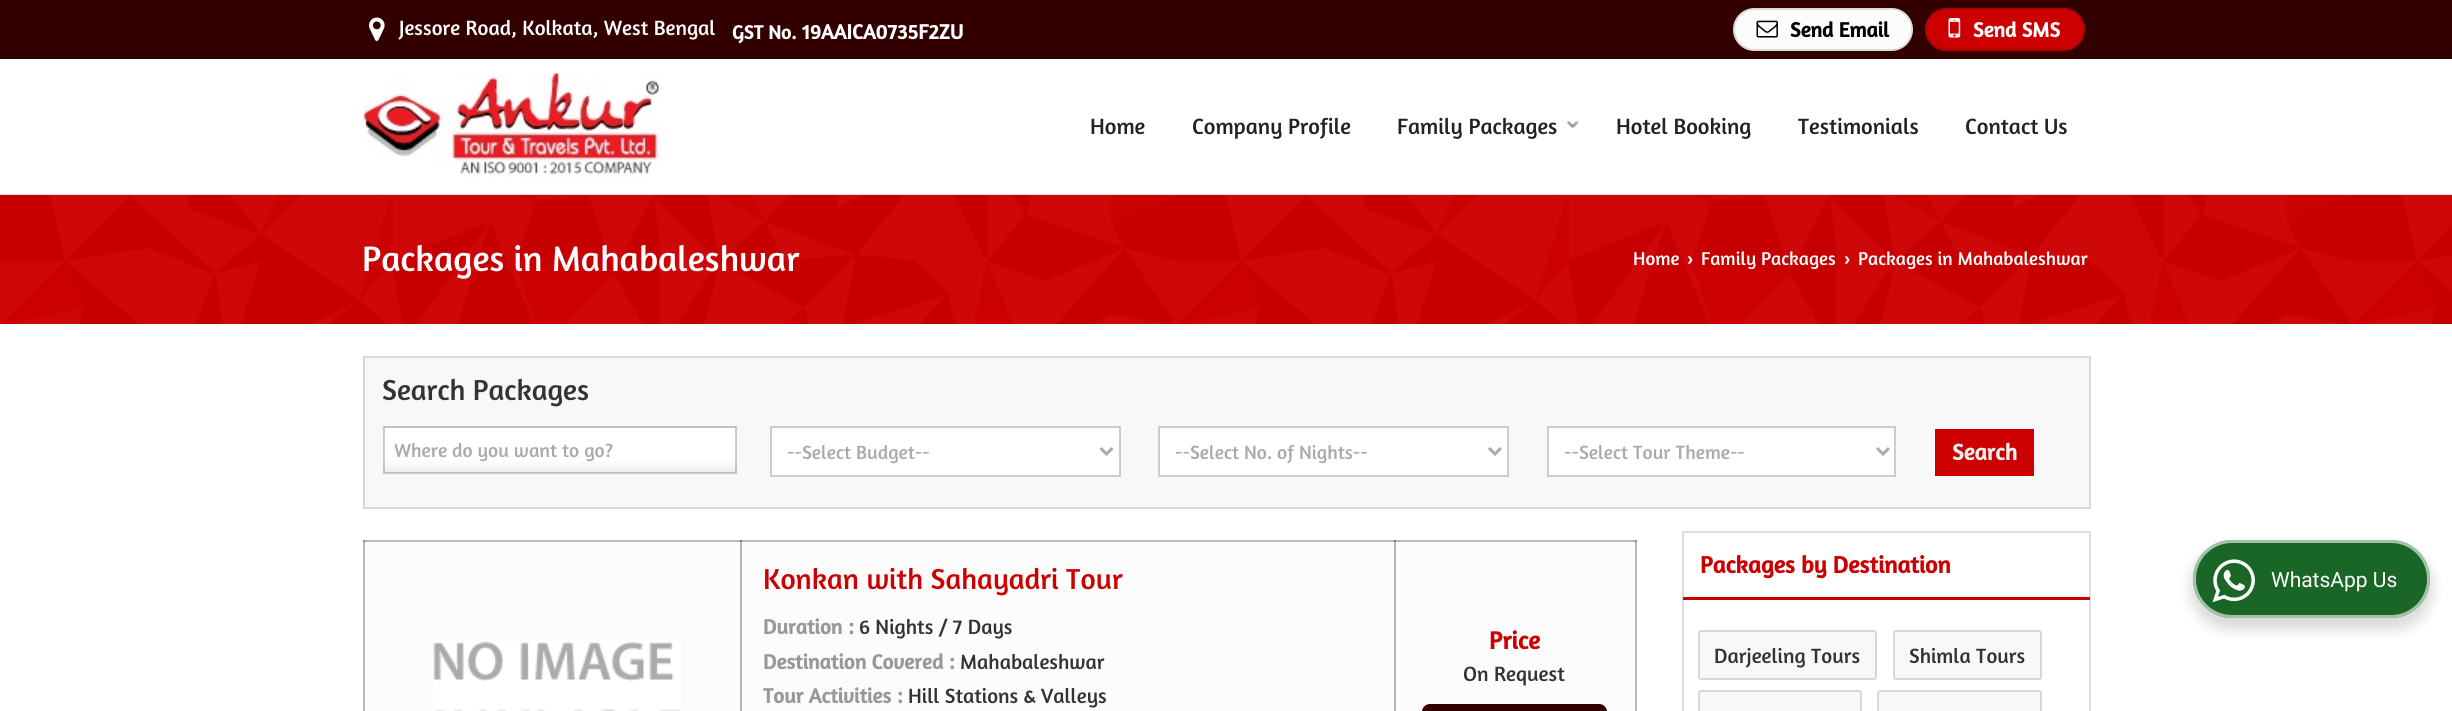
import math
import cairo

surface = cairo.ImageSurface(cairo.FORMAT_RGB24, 2452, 711)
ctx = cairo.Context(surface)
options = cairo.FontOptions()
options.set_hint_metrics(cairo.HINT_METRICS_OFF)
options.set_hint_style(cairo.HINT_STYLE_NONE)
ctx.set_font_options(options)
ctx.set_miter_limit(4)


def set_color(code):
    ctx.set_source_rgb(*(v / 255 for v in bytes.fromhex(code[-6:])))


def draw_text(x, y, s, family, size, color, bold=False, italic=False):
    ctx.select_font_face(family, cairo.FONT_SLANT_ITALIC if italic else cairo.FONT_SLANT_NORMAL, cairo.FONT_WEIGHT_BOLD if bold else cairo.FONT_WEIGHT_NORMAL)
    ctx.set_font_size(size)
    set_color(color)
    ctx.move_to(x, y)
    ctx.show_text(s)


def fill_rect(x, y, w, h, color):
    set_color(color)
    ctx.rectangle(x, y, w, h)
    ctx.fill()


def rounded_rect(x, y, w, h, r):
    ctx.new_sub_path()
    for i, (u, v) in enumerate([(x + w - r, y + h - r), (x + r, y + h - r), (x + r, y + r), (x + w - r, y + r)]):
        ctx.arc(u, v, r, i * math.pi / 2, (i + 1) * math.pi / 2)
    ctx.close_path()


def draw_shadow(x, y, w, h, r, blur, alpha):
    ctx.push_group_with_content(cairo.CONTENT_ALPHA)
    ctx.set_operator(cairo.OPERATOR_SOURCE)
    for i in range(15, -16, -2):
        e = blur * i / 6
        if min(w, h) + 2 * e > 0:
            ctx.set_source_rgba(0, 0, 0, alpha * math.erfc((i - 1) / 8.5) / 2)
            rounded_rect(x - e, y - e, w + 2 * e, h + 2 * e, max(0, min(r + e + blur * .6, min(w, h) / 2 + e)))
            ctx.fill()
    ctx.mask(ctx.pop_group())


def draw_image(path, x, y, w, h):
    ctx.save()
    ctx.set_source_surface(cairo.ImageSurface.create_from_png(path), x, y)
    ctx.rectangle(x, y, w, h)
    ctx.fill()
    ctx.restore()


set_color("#ffffff")
ctx.paint()
fill_rect(0, 0, 2452, 59, "#330000")
draw_image("assets/img1.png", 369, 17, 16, 24)
draw_text(399, 35, "Jessore Road, Kolkata, West Bengal", "Amaranth", 21, "#ffffff")
draw_text(732, 39, "GST No.", "Amaranth", 19.5, "#ffffff", bold=True)
draw_text(802, 39, "19AAICA0735F2ZU", "Amaranth", 21, "#ffffff", bold=True)
set_color("#fcfcfc")
rounded_rect(1733, 8, 180, 43, 21.5)
ctx.fill()
rounded_rect(1734, 9, 178, 41, 20.5)
ctx.set_source_rgba(0, 0, 0, 0.13)
ctx.stroke()
draw_image("assets/img2.png", 1756, 20, 22, 18)
draw_text(1790, 37, "Send Email", "Amaranth", 21, "#000000", bold=True)
set_color("#cc0000")
rounded_rect(1925, 8, 160, 43, 21.5)
ctx.fill()
rounded_rect(1926, 9, 158, 41, 20.5)
ctx.set_source_rgba(0, 0, 0, 0.13)
ctx.stroke()
draw_image("assets/img3.png", 1948, 18, 13, 20)
draw_text(1973, 37, "Send SMS", "Amaranth", 21, "#ffffff", bold=True)
fill_rect(0, 194, 2452, 1, "#dedede")
draw_image("assets/img4.png", 363, 73, 300, 105)
draw_text(1090, 134, "Home", "Amaranth", 22.5, "#222222")
draw_text(1192, 134, "Company Profile", "Amaranth", 22.5, "#222222")
draw_text(1397, 134, "Family Packages", "Amaranth", 22.5, "#222222")
draw_image("assets/img5.png", 1567, 121, 12, 8)
draw_text(1616, 134, "Hotel Booking", "Amaranth", 22.5, "#222222")
draw_text(1798, 134, "Testimonials", "Amaranth", 22.5, "#222222")
draw_text(1965, 134, "Contact Us", "Amaranth", 22.5, "#222222")
fill_rect(0, 195, 2452, 129, "#cc0000")
draw_image("assets/img6.png", 0, 195, 2452, 129)
draw_text(362, 271, "Packages in Mahabaleshwar", "Amaranth", 36, "#ffffff")
draw_text(1633, 265, "Home", "Amaranth", 18.9, "#ffffff")
draw_text(1687, 265, "›", "Liberation Sans", 18.9, "#ffffff", bold=True)
draw_text(1701, 265, "Family Packages", "Amaranth", 18.9, "#ffffff")
draw_text(1844, 265, "›", "Liberation Sans", 18.9, "#ffffff", bold=True)
draw_text(1858, 265, "Packages in Mahabaleshwar", "Amaranth", 18.9, "#ffffff")
set_color("#f8f8f8")
ctx.rectangle(364, 357, 1726, 151)
ctx.fill_preserve()
set_color("#d8d8d8")
ctx.stroke()
draw_text(382, 400, "Search Packages", "Amaranth", 29.4, "#333333")
gradient = cairo.LinearGradient(560, 383, 560, 428)
gradient.add_color_stop_rgba(0.7, 1, 1, 1, 1)
gradient.add_color_stop_rgba(1, 0.933, 0.933, 0.933, 1)
ctx.set_source(gradient)
ctx.rectangle(383, 426, 354, 2)
ctx.fill()
gradient = cairo.LinearGradient(560, 428, 560, 473)
gradient.add_color_stop_rgba(0.7, 1, 1, 1, 1)
gradient.add_color_stop_rgba(1, 0.933, 0.933, 0.933, 1)
ctx.set_source(gradient)
ctx.rectangle(383, 428, 354, 45)
ctx.fill()
gradient = cairo.LinearGradient(560, 473, 560, 518)
gradient.add_color_stop_rgba(0.7, 1, 1, 1, 1)
gradient.add_color_stop_rgba(1, 0.933, 0.933, 0.933, 1)
ctx.set_source(gradient)
ctx.rectangle(383, 473, 354, 1)
ctx.fill()
ctx.rectangle(384, 427, 352, 46)
ctx.set_source_rgba(0, 0, 0, 0.2)
ctx.stroke()
ctx.save()
ctx.rectangle(395, 438, 330, 24)
ctx.clip()
draw_text(394, 457, "Where do you want to go?", "Amaranth", 19.5, "#aaaaaa")
ctx.restore()
set_color("#ffffff")
ctx.rectangle(771, 427, 349, 49)
ctx.fill_preserve()
set_color("#cccccc")
ctx.stroke()
ctx.new_path()
ctx.move_to(1100.5, 448)
ctx.line_to(1106.5, 454)
ctx.line_to(1112.5, 448)
set_color("#aaaaaa")
ctx.set_line_width(3)
ctx.stroke()
draw_text(787, 459, "--Select Budget--", "Amaranth", 19.5, "#aaaaaa")
set_color("#ffffff")
ctx.rectangle(1159, 427, 349, 49)
ctx.fill_preserve()
set_color("#cccccc")
ctx.set_line_width(2)
ctx.stroke()
ctx.new_path()
ctx.move_to(1489, 448)
ctx.line_to(1495, 454)
ctx.line_to(1501, 448)
set_color("#aaaaaa")
ctx.set_line_width(3)
ctx.stroke()
draw_text(1175, 459, "--Select No. of Nights--", "Amaranth", 19.5, "#aaaaaa")
set_color("#ffffff")
ctx.rectangle(1548, 427, 347, 49)
ctx.fill_preserve()
set_color("#cccccc")
ctx.set_line_width(2)
ctx.stroke()
ctx.new_path()
ctx.move_to(1877, 448)
ctx.line_to(1883, 454)
ctx.line_to(1889, 448)
set_color("#aaaaaa")
ctx.set_line_width(3)
ctx.stroke()
draw_text(1564, 459, "--Select Tour Theme--", "Amaranth", 19.5, "#aaaaaa")
fill_rect(1935, 429, 99, 47, "#cc0000")
draw_text(1952, 460, "Search", "Amaranth", 23, "#eeeeee", bold=True)
fill_rect(365, 542, 1270, 169, "#fcfcfc")
fill_rect(740, 540, 2, 171, "#b6b6b6")
fill_rect(1394, 540, 2, 171, "#b6b6b6")
fill_rect(363, 540, 2, 171, "#bababa")
fill_rect(1635, 540, 2, 171, "#bababa")
fill_rect(363, 540, 1274, 2, "#bababa")
fill_rect(740, 540, 2, 2, "#868686")
fill_rect(740, 540, 1, 2, "#727272")
fill_rect(1394, 540, 2, 2, "#868686")
fill_rect(1394, 540, 1, 2, "#727272")
fill_rect(363, 540, 2, 2, "#8a8a8a")
fill_rect(1635, 540, 2, 2, "#8a8a8a")
draw_image("assets/img7.png", 433, 641, 248, 70)
draw_text(763, 589, "Konkan with Sahayadri Tour", "Amaranth", 29.4, "#cc0000")
draw_text(763, 634, "Duration :", "Amaranth", 21, "#989898", bold=True)
draw_text(859, 634, "6 Nights / 7 Days", "Amaranth", 21, "#333333")
draw_text(763, 669, "Destination Covered :", "Amaranth", 21, "#989898", bold=True)
draw_text(960, 669, "Mahabaleshwar", "Amaranth", 21, "#333333")
draw_text(763, 703, "Tour Activities :", "Amaranth", 21, "#989898", bold=True)
draw_text(908, 703, "Hill Stations & Valleys", "Amaranth", 21, "#333333")
draw_text(1489, 649, "Price", "Amaranth", 25, "#cc0000", bold=True)
draw_text(1463, 681, "On Request", "Amaranth", 21, "#333333")
set_color("#330000")
rounded_rect(1422, 704, 185, 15, 8)
ctx.fill()
rounded_rect(1423, 705, 183, 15, 7)
ctx.set_source_rgba(0, 0, 0, 0.13)
ctx.set_line_width(2)
ctx.stroke()
ctx.rectangle(1683, 532, 407, 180)
set_color("#dedede")
ctx.stroke()
fill_rect(1683, 597, 407, 3, "#cc0000")
draw_text(1700, 573, "Packages by Destination", "Amaranth", 24, "#cc0000", bold=True)
set_color("#f8f8f8")
rounded_rect(1698, 630, 179, 50, 3)
ctx.fill()
rounded_rect(1699, 631, 177, 48, 2)
ctx.set_source_rgba(0, 0, 0, 0.13)
ctx.stroke()
draw_text(1714, 663, "Darjeeling Tours", "Amaranth", 21, "#333333")
set_color("#f8f8f8")
rounded_rect(1893, 630, 149, 50, 3)
ctx.fill()
rounded_rect(1894, 631, 147, 48, 2)
ctx.set_source_rgba(0, 0, 0, 0.13)
ctx.stroke()
draw_text(1909, 663, "Shimla Tours", "Amaranth", 21, "#333333")
set_color("#f8f8f8")
rounded_rect(1698, 690, 164, 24, 3)
ctx.fill()
rounded_rect(1699, 691, 162, 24, 2)
ctx.set_source_rgba(0, 0, 0, 0.13)
ctx.stroke()
set_color("#f8f8f8")
rounded_rect(1877, 690, 165, 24, 3)
ctx.fill()
rounded_rect(1878, 691, 163, 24, 2)
ctx.set_source_rgba(0, 0, 0, 0.13)
ctx.stroke()
set_color("#000000")
draw_shadow(2190, 546, 243, 84, 42, 6, 0.14)
set_color("#196626")
rounded_rect(2193, 540, 237, 78, 39)
ctx.fill()
rounded_rect(2194.5, 541.5, 234, 75, 37.5)
ctx.set_source_rgba(1, 1, 1, 0.6)
ctx.set_line_width(3)
ctx.stroke()
draw_image("assets/img8.png", 2212, 559, 43, 44)
draw_text(2271, 587, "WhatsApp Us", "Roboto", 21, "#ffffff")
surface.write_to_png("output.png")
